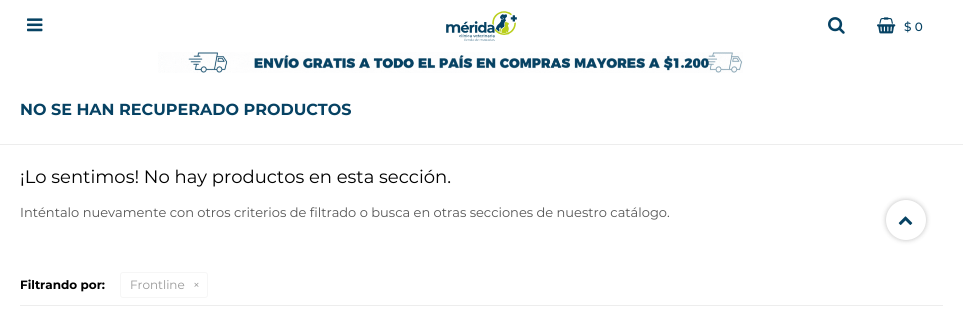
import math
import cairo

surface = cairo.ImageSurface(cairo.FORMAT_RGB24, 963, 330)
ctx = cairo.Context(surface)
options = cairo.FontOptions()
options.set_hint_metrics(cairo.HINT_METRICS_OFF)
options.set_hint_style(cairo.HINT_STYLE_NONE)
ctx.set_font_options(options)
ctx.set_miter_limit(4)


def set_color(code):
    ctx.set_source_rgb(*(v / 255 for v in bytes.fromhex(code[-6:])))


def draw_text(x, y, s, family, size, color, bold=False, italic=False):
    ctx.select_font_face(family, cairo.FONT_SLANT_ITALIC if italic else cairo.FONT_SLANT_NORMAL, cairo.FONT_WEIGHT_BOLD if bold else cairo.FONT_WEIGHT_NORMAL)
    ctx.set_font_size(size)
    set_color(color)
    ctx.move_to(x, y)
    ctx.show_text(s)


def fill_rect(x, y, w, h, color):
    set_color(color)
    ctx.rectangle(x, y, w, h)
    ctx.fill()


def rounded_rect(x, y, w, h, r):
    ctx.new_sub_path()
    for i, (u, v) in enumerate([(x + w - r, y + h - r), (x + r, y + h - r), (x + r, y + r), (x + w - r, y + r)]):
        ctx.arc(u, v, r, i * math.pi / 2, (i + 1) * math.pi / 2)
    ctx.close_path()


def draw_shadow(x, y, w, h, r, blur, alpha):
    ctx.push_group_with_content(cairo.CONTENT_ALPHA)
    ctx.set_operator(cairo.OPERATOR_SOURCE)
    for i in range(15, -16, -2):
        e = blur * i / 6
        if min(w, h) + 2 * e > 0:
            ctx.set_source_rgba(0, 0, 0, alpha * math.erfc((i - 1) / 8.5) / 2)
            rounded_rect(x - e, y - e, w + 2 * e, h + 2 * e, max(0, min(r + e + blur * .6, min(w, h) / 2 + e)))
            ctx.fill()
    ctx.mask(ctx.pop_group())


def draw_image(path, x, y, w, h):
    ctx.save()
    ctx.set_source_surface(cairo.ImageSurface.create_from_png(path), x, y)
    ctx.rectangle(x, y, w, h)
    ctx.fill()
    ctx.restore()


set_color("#ffffff")
ctx.paint()
draw_image("assets/img1.png", 27, 18, 16, 14)
draw_image("assets/img2.png", 446, 11, 71, 30)
draw_image("assets/img3.png", 828, 17, 17, 17)
draw_image("assets/img4.png", 877, 17, 19, 17)
draw_text(904, 31, "$ 0", "Montserrat Medium", 12, "#064263")
draw_image("assets/img5.png", 158, 52, 585, 21)
draw_text(20, 115, "NO SE HAN RECUPERADO PRODUCTOS", "Montserrat", 16, "#064263", bold=True)
fill_rect(0, 144, 963, 1, "#ededed")
draw_text(20, 183, "¡Lo sentimos! No hay productos en esta sección.", "Montserrat", 18, "#000000")
draw_text(20, 217, "Inténtalo nuevamente con otros criterios de filtrado o busca en otras secciones de nuestro catálogo.", "Montserrat", 13, "#555555")
fill_rect(20, 305, 923, 1, "#ededed")
draw_text(20, 289, "Filtrando por:", "Montserrat", 12, "#000000", bold=True)
rounded_rect(120.5, 272.5, 87, 25, 2.5)
set_color("#f6f6f6")
ctx.set_line_width(1)
ctx.stroke()
draw_text(130, 289, "Frontline", "Montserrat", 12, "#999999")
draw_text(193, 289, "×", "Montserrat", 12, "#999999")
set_color("#000000")
draw_shadow(886, 200, 40, 40, 20, 2.5, 0.25)
set_color("#ffffff")
ctx.arc(906, 220, 20, 0, 2 * math.pi)
ctx.fill()
draw_image("assets/img6.png", 898, 216, 15, 9)
surface.write_to_png("output.png")
